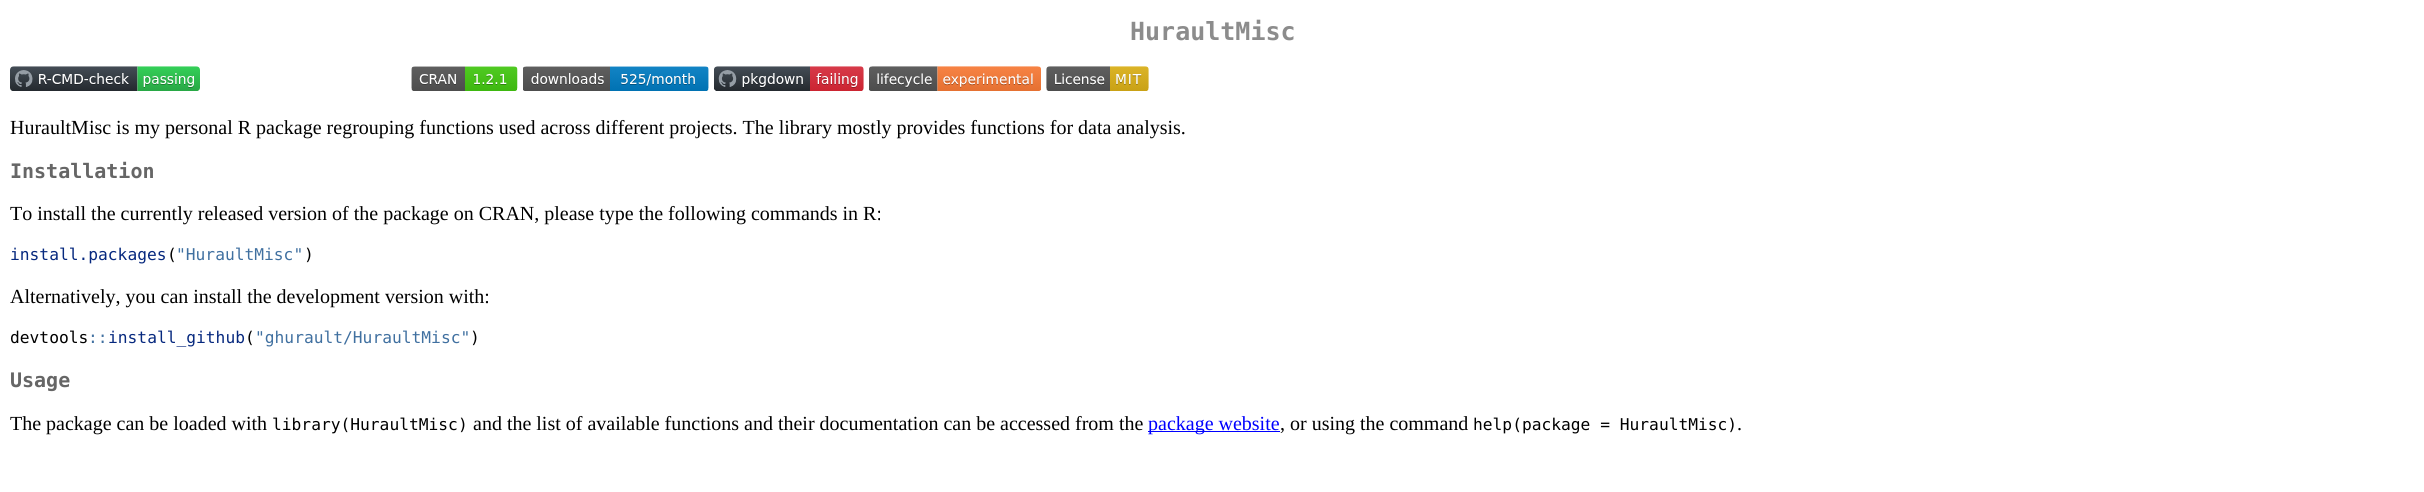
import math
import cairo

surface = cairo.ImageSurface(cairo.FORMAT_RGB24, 2424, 492)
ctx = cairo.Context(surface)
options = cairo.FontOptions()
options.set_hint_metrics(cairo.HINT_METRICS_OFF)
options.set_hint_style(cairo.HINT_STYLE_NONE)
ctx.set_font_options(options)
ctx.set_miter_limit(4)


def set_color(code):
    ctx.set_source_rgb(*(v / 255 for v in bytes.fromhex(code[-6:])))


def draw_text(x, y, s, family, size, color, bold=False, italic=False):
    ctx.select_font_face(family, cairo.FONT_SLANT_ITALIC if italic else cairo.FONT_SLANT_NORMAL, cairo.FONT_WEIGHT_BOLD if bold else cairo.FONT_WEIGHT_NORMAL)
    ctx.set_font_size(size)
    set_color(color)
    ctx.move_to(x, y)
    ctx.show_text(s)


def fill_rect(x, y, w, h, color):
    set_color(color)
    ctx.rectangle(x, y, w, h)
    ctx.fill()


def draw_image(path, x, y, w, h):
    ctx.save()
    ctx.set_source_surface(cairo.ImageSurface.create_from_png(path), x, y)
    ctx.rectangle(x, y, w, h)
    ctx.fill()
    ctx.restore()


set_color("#ffffff")
ctx.paint()
draw_text(1130, 40, "HuraultMisc", "DejaVu Sans Mono", 25, "#8c8c8c", bold=True)
draw_image("assets/img1.png", 10, 66, 190, 25)
draw_image("assets/img2.png", 411, 66, 107, 25)
draw_image("assets/img3.png", 523, 66, 186, 25)
draw_image("assets/img4.png", 714, 66, 150, 25)
draw_image("assets/img5.png", 869, 66, 172, 25)
draw_image("assets/img6.png", 1046, 66, 103, 25)
draw_text(10, 134, "HuraultMisc is my personal R package regrouping functions used across different projects. The library mostly provides functions for data analysis.", "Liberation Serif", 20, "#000000")
draw_text(10, 178, "Installation", "DejaVu Sans Mono", 20, "#666666", bold=True)
draw_text(10, 220, "To install the currently released version of the package on CRAN, please type the following commands in R:", "Liberation Serif", 20, "#000000")
draw_text(10, 260, "install.packages", "DejaVu Sans Mono", 16.25, "#06287e")
draw_text(167, 260, "(", "DejaVu Sans Mono", 16.25, "#000000")
draw_text(176, 260, "\"HuraultMisc\"", "DejaVu Sans Mono", 16.25, "#4070a0")
draw_text(304, 260, ")", "DejaVu Sans Mono", 16.25, "#000000")
draw_text(10, 303, "Alternatively, you can install the development version with:", "Liberation Serif", 20, "#000000")
draw_text(10, 343, "devtools", "DejaVu Sans Mono", 16.25, "#000000")
draw_text(88, 343, "::", "DejaVu Sans Mono", 16.25, "#4070a0")
draw_text(108, 343, "install_github", "DejaVu Sans Mono", 16.25, "#06287e")
draw_text(245, 343, "(", "DejaVu Sans Mono", 16.25, "#000000")
draw_text(255, 343, "\"ghurault/HuraultMisc\"", "DejaVu Sans Mono", 16.25, "#4070a0")
draw_text(470, 343, ")", "DejaVu Sans Mono", 16.25, "#000000")
draw_text(10, 387, "Usage", "DejaVu Sans Mono", 20, "#666666", bold=True)
draw_text(10, 430, "The package can be loaded with", "Liberation Serif", 20, "#000000")
draw_text(272, 430, "library(HuraultMisc)", "DejaVu Sans Mono", 16.25, "#000000")
draw_text(473, 430, "and the list of available functions and their documentation can be accessed from the", "Liberation Serif", 20, "#000000")
fill_rect(1148, 431, 132, 1, "#0000ff")
draw_text(1148, 430, "package website", "Liberation Serif", 20, "#0000ff")
draw_text(1280, 430, ", or using the command", "Liberation Serif", 20, "#000000")
draw_text(1473, 430, "help(package = HuraultMisc)", "DejaVu Sans Mono", 16.25, "#000000")
draw_text(1737, 430, ".", "Liberation Serif", 20, "#000000")
surface.write_to_png("output.png")
